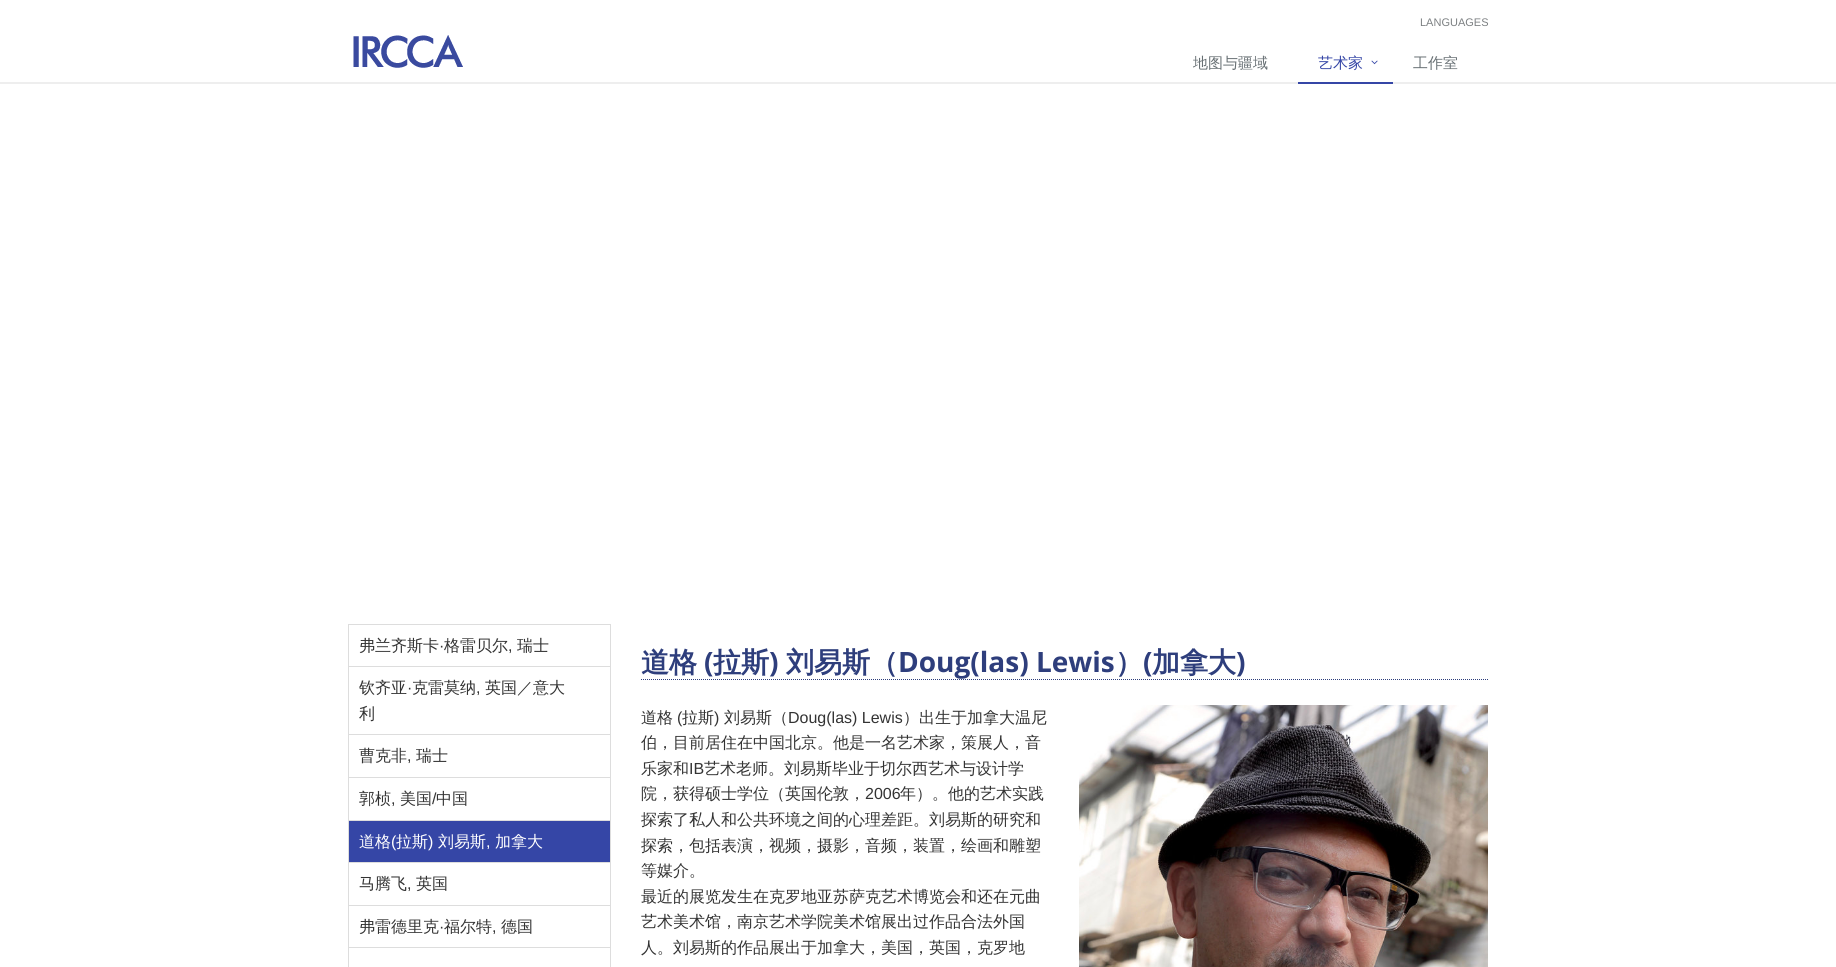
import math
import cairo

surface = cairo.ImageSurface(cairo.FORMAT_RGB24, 1836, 967)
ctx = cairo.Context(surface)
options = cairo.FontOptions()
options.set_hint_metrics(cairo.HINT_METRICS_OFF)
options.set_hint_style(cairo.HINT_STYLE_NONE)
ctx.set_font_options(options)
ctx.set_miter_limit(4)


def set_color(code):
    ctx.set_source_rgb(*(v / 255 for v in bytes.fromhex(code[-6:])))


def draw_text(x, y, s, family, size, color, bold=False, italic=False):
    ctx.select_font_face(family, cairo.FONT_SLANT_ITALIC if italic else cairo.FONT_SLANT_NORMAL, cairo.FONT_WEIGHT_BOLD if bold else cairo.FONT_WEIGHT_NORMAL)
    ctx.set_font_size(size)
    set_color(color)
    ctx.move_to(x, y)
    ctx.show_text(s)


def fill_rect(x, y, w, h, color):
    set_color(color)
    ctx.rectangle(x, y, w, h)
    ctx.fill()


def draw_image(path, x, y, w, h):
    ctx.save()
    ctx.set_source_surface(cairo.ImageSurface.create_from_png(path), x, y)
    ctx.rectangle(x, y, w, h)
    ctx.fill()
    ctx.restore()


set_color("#ffffff")
ctx.paint()
fill_rect(0, 82, 1836, 2, "#eeeeee")
draw_text(1420, 26, "LANGUAGES", "Liberation Sans", 11, "#7c8082")
draw_image("assets/img1.png", 353, 35, 110, 33)
draw_text(1193, 68, "地图与疆域", "WenQuanYi Zen Hei Medium", 15, "#687074")
fill_rect(1298, 82, 95, 2, "#3546a6")
draw_text(1318, 68, "艺术家", "WenQuanYi Zen Hei Medium", 15, "#3546a6")
draw_image("assets/img2.png", 1371, 60, 7, 5)
draw_text(1413, 68, "工作室", "WenQuanYi Zen Hei Medium", 15, "#687074")
ctx.rectangle(348.5, 624.5, 262, 42)
set_color("#dddddd")
ctx.set_line_width(1)
ctx.stroke()
draw_text(359, 651, "弗兰齐斯卡", "WenQuanYi Zen Hei Medium", 16, "#333333")
draw_text(439, 651, "·", "Liberation Sans", 16, "#333333")
draw_text(444, 651, "格雷贝尔", "WenQuanYi Zen Hei Medium", 16, "#333333")
draw_text(517, 651, "瑞士", "WenQuanYi Zen Hei Medium", 16, "#333333")
draw_text(508, 651, ",", "Liberation Sans", 16, "#333333")
ctx.rectangle(348.5, 666.5, 262, 68)
set_color("#dddddd")
ctx.stroke()
draw_text(359, 693, "钦齐亚", "WenQuanYi Zen Hei Medium", 16, "#333333")
draw_text(407, 693, "·", "Liberation Sans", 16, "#333333")
draw_text(412, 693, "克雷莫纳", "WenQuanYi Zen Hei Medium", 16, "#333333")
draw_text(485, 693, "英国／意大", "WenQuanYi Zen Hei Medium", 16, "#333333")
draw_text(476, 693, ",", "Liberation Sans", 16, "#333333")
draw_text(359, 719, "利", "WenQuanYi Zen Hei Medium", 16, "#333333")
ctx.rectangle(348.5, 734.5, 262, 43)
set_color("#dddddd")
ctx.stroke()
draw_text(359, 761, "曹克非", "WenQuanYi Zen Hei Medium", 16, "#333333")
draw_text(407, 761, ",", "Liberation Sans", 16, "#333333")
draw_text(416, 761, "瑞士", "WenQuanYi Zen Hei Medium", 16, "#333333")
ctx.rectangle(348.5, 777.5, 262, 43)
set_color("#dddddd")
ctx.stroke()
draw_text(359, 804, "郭桢", "WenQuanYi Zen Hei Medium", 16, "#333333")
draw_text(391, 804, ",", "Liberation Sans", 16, "#333333")
draw_text(400, 804, "美国", "WenQuanYi Zen Hei Medium", 16, "#333333")
draw_text(432, 804, "/", "Liberation Sans", 16, "#333333")
draw_text(436, 804, "中国", "WenQuanYi Zen Hei Medium", 16, "#333333")
set_color("#3546a6")
ctx.rectangle(348.5, 820.5, 262, 42)
ctx.fill_preserve()
set_color("#dddddd")
ctx.stroke()
draw_text(359, 847, "道格", "WenQuanYi Zen Hei Medium", 16, "#ffffff")
draw_text(391, 847, "(", "Liberation Sans", 16, "#ffffff")
draw_text(396, 847, "拉斯", "WenQuanYi Zen Hei Medium", 16, "#ffffff")
draw_text(428, 847, ")", "Liberation Sans", 16, "#ffffff")
draw_text(438, 847, "刘易斯", "WenQuanYi Zen Hei Medium", 16, "#ffffff")
draw_text(486, 847, ",", "Liberation Sans", 16, "#ffffff")
draw_text(495, 847, "加拿大", "WenQuanYi Zen Hei Medium", 16, "#ffffff")
ctx.rectangle(348.5, 862.5, 262, 43)
set_color("#dddddd")
ctx.stroke()
draw_text(359, 889, "马腾飞", "WenQuanYi Zen Hei Medium", 16, "#333333")
draw_text(407, 889, ",", "Liberation Sans", 16, "#333333")
draw_text(416, 889, "英国", "WenQuanYi Zen Hei Medium", 16, "#333333")
ctx.rectangle(348.5, 905.5, 262, 42)
set_color("#dddddd")
ctx.stroke()
draw_text(359, 932, "弗雷德里克", "WenQuanYi Zen Hei Medium", 16, "#333333")
draw_text(439, 932, "·", "Liberation Sans", 16, "#333333")
draw_text(444, 932, "福尔特", "WenQuanYi Zen Hei Medium", 16, "#333333")
draw_text(501, 932, "德国", "WenQuanYi Zen Hei Medium", 16, "#333333")
draw_text(492, 932, ",", "Liberation Sans", 16, "#333333")
ctx.rectangle(348.5, 947.5, 262, 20)
set_color("#dddddd")
ctx.stroke()
ctx.new_path()
ctx.move_to(641, 679.5)
ctx.line_to(1488, 679.5)
set_color("#2e3e7c")
ctx.set_dash([1, 1])
ctx.stroke()
draw_text(641, 672, "道格", "WenQuanYi Zen Hei", 28, "#2e3e7c", bold=True)
draw_text(704, 672, "(", "Open Sans", 28, "#2e3e7c", bold=True)
draw_text(713, 672, "拉斯", "WenQuanYi Zen Hei", 28, "#2e3e7c", bold=True)
draw_text(769, 672, ")", "Open Sans", 28, "#2e3e7c", bold=True)
draw_text(786, 672, "刘易斯（", "WenQuanYi Zen Hei", 28, "#2e3e7c", bold=True)
draw_text(898, 672, "Doug(las) Lewis", "Open Sans", 28, "#2e3e7c", bold=True)
draw_text(1115, 672, "）", "WenQuanYi Zen Hei", 28, "#2e3e7c", bold=True)
draw_text(1143, 672, "(", "Open Sans", 28, "#2e3e7c", bold=True)
draw_text(1152, 672, "加拿大", "WenQuanYi Zen Hei", 28, "#2e3e7c", bold=True)
draw_text(1236, 672, ")", "Open Sans", 28, "#2e3e7c", bold=True)
draw_text(641, 723, "道格", "WenQuanYi Zen Hei Medium", 16, "#333333")
draw_text(677, 723, "(", "Liberation Sans", 16, "#333333")
draw_text(682, 723, "拉斯", "WenQuanYi Zen Hei Medium", 16, "#333333")
draw_text(714, 723, ")", "Liberation Sans", 16, "#333333")
draw_text(724, 723, "刘易斯（", "WenQuanYi Zen Hei Medium", 16, "#333333")
draw_text(788, 723, "Doug(las) Lewis", "Liberation Sans", 16, "#333333")
draw_text(903, 723, "）出生于加拿大温尼", "WenQuanYi Zen Hei Medium", 16, "#333333")
draw_text(641, 748, "伯，目前居住在中国北京。他是一名艺术家，策展人，音", "WenQuanYi Zen Hei Medium", 16, "#333333")
draw_text(641, 774, "乐家和", "WenQuanYi Zen Hei Medium", 16, "#333333")
draw_text(689, 774, "IB", "Liberation Sans", 16, "#333333")
draw_text(704, 774, "艺术老师。刘易斯毕业于切尔西艺术与设计学", "WenQuanYi Zen Hei Medium", 16, "#333333")
draw_text(641, 799, "院，获得硕士学位（英国伦敦，", "WenQuanYi Zen Hei Medium", 16, "#333333")
draw_text(865, 799, "2006", "Liberation Sans", 16, "#333333")
draw_text(900, 799, "年）。他的艺术实践", "WenQuanYi Zen Hei Medium", 16, "#333333")
draw_text(641, 825, "探索了私人和公共环境之间的心理差距。刘易斯的研究和", "WenQuanYi Zen Hei Medium", 16, "#333333")
draw_text(641, 851, "探索，包括表演，视频，摄影，音频，装置，绘画和雕塑", "WenQuanYi Zen Hei Medium", 16, "#333333")
draw_text(641, 876, "等媒介。", "WenQuanYi Zen Hei Medium", 16, "#333333")
draw_text(641, 902, "最近的展览发生在克罗地亚苏萨克艺术博览会和还在元曲", "WenQuanYi Zen Hei Medium", 16, "#333333")
draw_text(641, 927, "艺术美术馆，南京艺术学院美术馆展出过作品合法外国", "WenQuanYi Zen Hei Medium", 16, "#333333")
draw_text(641, 953, "人。刘易斯的作品展出于加拿大，美国，英国，克罗地", "WenQuanYi Zen Hei Medium", 16, "#333333")
draw_image("assets/img3.png", 1079, 705, 409, 262)
surface.write_to_png("output.png")
